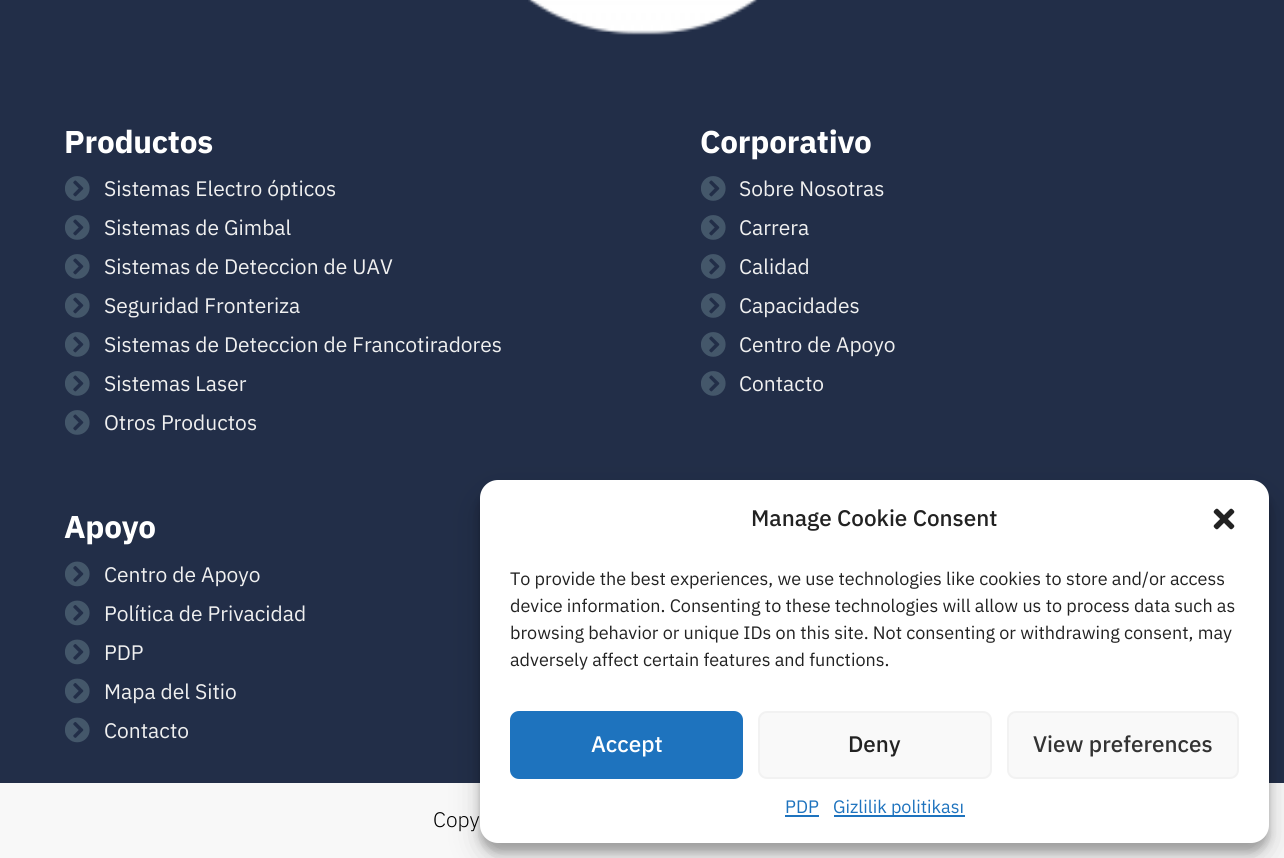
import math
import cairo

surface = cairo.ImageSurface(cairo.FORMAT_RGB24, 1284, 858)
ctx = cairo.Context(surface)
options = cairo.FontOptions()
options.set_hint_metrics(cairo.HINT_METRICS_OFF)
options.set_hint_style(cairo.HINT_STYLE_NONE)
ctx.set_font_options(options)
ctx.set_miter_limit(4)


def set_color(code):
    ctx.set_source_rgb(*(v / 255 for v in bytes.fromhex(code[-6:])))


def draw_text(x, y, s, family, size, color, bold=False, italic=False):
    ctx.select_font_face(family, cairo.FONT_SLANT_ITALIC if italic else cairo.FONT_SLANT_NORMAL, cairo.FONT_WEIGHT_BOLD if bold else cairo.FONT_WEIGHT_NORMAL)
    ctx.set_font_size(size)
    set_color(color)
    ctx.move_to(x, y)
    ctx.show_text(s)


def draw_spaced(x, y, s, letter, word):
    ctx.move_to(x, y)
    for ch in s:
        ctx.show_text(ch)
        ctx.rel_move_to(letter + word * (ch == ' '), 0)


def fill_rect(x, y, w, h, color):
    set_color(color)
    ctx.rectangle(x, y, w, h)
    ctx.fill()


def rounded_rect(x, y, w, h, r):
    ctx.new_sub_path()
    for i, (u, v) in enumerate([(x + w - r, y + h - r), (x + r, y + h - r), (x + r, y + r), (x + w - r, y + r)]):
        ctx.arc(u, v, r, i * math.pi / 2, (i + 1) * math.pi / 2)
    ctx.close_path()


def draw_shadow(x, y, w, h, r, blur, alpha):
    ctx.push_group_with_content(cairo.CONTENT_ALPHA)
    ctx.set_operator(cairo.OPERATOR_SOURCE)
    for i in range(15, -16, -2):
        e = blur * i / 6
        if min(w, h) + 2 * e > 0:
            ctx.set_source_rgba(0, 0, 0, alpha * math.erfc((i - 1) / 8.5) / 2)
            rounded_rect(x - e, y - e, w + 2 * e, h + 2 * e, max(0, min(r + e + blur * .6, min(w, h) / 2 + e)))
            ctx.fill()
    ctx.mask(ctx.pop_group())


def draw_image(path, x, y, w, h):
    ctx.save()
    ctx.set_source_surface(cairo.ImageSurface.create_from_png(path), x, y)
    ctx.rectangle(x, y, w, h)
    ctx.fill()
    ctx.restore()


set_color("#ffffff")
ctx.paint()
gradient = cairo.LinearGradient(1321, 743, -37, -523)
gradient.add_color_stop_rgba(0.94, 0.133, 0.18, 0.282, 1)
gradient.add_color_stop_rgba(0.94, 1, 1, 1, 1)
ctx.set_source(gradient)
ctx.rectangle(0, 0, 1284, 783)
ctx.fill()
draw_image("assets/img1.png", 528, 0, 230, 35)
ctx.select_font_face("IBM Plex Sans", cairo.FONT_SLANT_NORMAL, cairo.FONT_WEIGHT_BOLD)
ctx.set_font_size(31.5)
set_color("#ffffff")
draw_spaced(64, 153, "Productos", -0.25, 0)
draw_image("assets/img2.png", 65, 176, 25, 25)
draw_text(104, 196, "Sistemas Electro ópticos", "IBM Plex Sans", 21, "#f0f0f0")
draw_image("assets/img2.png", 65, 215, 25, 25)
draw_text(104, 235, "Sistemas de Gimbal", "IBM Plex Sans", 21, "#f0f0f0")
draw_image("assets/img2.png", 65, 254, 25, 25)
draw_text(104, 274, "Sistemas de Deteccion de UAV", "IBM Plex Sans", 21, "#f0f0f0")
draw_image("assets/img2.png", 65, 293, 25, 25)
draw_text(104, 313, "Seguridad Fronteriza", "IBM Plex Sans", 21, "#f0f0f0")
draw_image("assets/img2.png", 65, 332, 25, 25)
draw_text(104, 352, "Sistemas de Deteccion de Francotiradores", "IBM Plex Sans", 21, "#f0f0f0")
draw_image("assets/img2.png", 65, 371, 25, 25)
draw_text(104, 391, "Sistemas Laser", "IBM Plex Sans", 21, "#f0f0f0")
draw_image("assets/img2.png", 65, 410, 25, 25)
draw_text(104, 430, "Otros Productos", "IBM Plex Sans", 21, "#f0f0f0")
ctx.select_font_face("IBM Plex Sans", cairo.FONT_SLANT_NORMAL, cairo.FONT_WEIGHT_BOLD)
ctx.set_font_size(31.5)
set_color("#ffffff")
draw_spaced(700, 153, "Corporativo", -0.25, 0)
draw_image("assets/img2.png", 701, 176, 25, 25)
draw_text(739, 196, "Sobre Nosotras", "IBM Plex Sans", 21, "#f0f0f0")
draw_image("assets/img2.png", 701, 215, 25, 25)
draw_text(739, 235, "Carrera", "IBM Plex Sans", 21, "#f0f0f0")
draw_image("assets/img2.png", 701, 254, 25, 25)
draw_text(739, 274, "Calidad", "IBM Plex Sans", 21, "#f0f0f0")
draw_image("assets/img2.png", 701, 293, 25, 25)
draw_text(739, 313, "Capacidades", "IBM Plex Sans", 21, "#f0f0f0")
draw_image("assets/img2.png", 701, 332, 25, 25)
draw_text(739, 352, "Centro de Apoyo", "IBM Plex Sans", 21, "#f0f0f0")
draw_image("assets/img2.png", 701, 371, 25, 25)
draw_text(739, 391, "Contacto", "IBM Plex Sans", 21, "#f0f0f0")
ctx.select_font_face("IBM Plex Sans", cairo.FONT_SLANT_NORMAL, cairo.FONT_WEIGHT_BOLD)
ctx.set_font_size(31.5)
set_color("#ffffff")
draw_spaced(64, 538, "Apoyo", -0.25, 0)
draw_image("assets/img3.png", 65, 561, 25, 26)
draw_text(104, 582, "Centro de Apoyo", "IBM Plex Sans", 21, "#f0f0f0")
draw_image("assets/img3.png", 65, 600, 25, 26)
draw_text(104, 621, "Política de Privacidad", "IBM Plex Sans", 21, "#f0f0f0")
draw_image("assets/img3.png", 65, 639, 25, 26)
draw_text(104, 660, "PDP", "IBM Plex Sans", 21, "#f0f0f0")
draw_image("assets/img3.png", 65, 678, 25, 26)
draw_text(104, 699, "Mapa del Sitio", "IBM Plex Sans", 21, "#f0f0f0")
draw_image("assets/img3.png", 65, 717, 25, 26)
draw_text(104, 738, "Contacto", "IBM Plex Sans", 21, "#f0f0f0")
fill_rect(0, 783, 1284, 75, "#f8f8f8")
draw_text(433, 827, "Copy", "IBM Plex Sans Light", 21, "#000000")
set_color("#000000")
draw_shadow(480, 489, 789, 363, 18, 4.5, 0.23)
draw_shadow(480, 495, 789, 363, 18, 15, 0.19)
set_color("#ffffff")
rounded_rect(480, 480, 789, 363, 18)
ctx.fill()
draw_text(751, 526, "Manage Cookie Consent", "IBM Plex Sans Medium", 22.5, "#222222")
draw_image("assets/img4.png", 1213, 508, 22, 22)
draw_text(510, 585, "To provide the best experiences, we use technologies like cookies to store and/or access", "IBM Plex Sans", 18, "#222222")
draw_text(510, 612, "device information. Consenting to these technologies will allow us to process data such as", "IBM Plex Sans", 18, "#222222")
draw_text(510, 639, "browsing behavior or unique IDs on this site. Not consenting or withdrawing consent, may", "IBM Plex Sans", 18, "#222222")
draw_text(510, 666, "adversely affect certain features and functions.", "IBM Plex Sans", 18, "#222222")
set_color("#1e73be")
rounded_rect(511, 712, 231, 66, 8)
ctx.fill_preserve()
ctx.stroke()
draw_text(591, 752, "Accept", "IBM Plex Sans Medium", 22.5, "#ffffff")
set_color("#f9f9f9")
rounded_rect(759, 712, 232, 66, 8)
ctx.fill_preserve()
set_color("#f2f2f2")
ctx.stroke()
draw_text(848, 752, "Deny", "IBM Plex Sans Medium", 22.5, "#222222")
set_color("#f9f9f9")
rounded_rect(1008, 712, 230, 66, 8)
ctx.fill_preserve()
set_color("#f2f2f2")
ctx.stroke()
draw_text(1033, 752, "View preferences", "IBM Plex Sans Medium", 22.5, "#333333")
draw_text(785, 813, "PDP", "IBM Plex Sans", 18, "#1e73be")
fill_rect(785, 815, 34, 2, "#1e73be")
fill_rect(834, 815, 131, 2, "#1e73be")
draw_text(833, 813, "Gizlilik politikası", "IBM Plex Sans", 18, "#1e73be")
surface.write_to_png("output.png")
